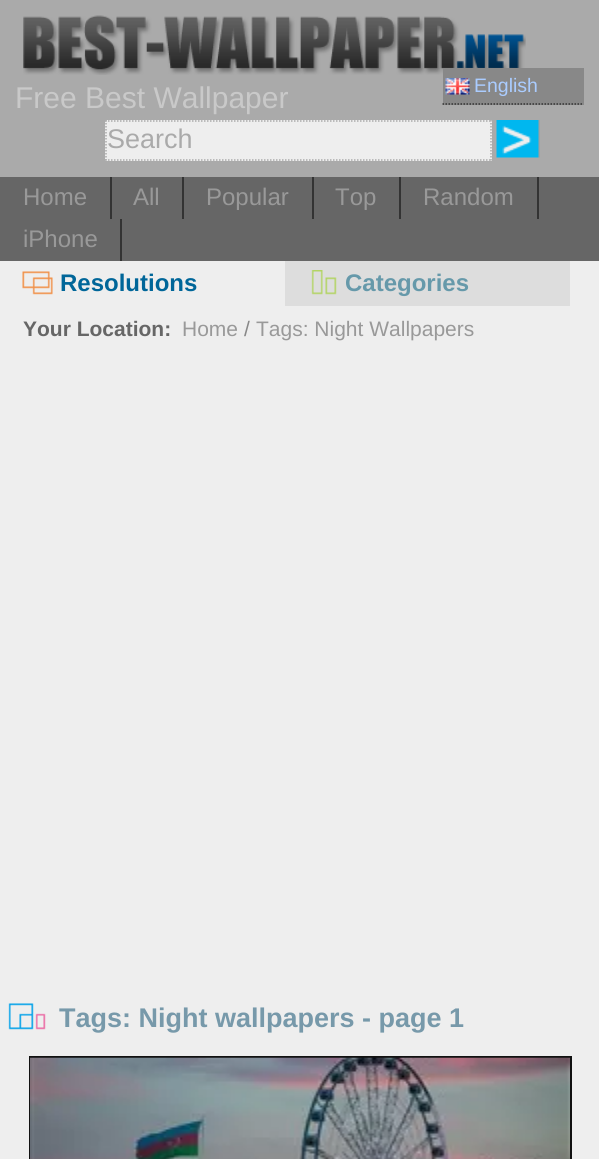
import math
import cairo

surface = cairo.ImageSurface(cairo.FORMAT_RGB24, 599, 1159)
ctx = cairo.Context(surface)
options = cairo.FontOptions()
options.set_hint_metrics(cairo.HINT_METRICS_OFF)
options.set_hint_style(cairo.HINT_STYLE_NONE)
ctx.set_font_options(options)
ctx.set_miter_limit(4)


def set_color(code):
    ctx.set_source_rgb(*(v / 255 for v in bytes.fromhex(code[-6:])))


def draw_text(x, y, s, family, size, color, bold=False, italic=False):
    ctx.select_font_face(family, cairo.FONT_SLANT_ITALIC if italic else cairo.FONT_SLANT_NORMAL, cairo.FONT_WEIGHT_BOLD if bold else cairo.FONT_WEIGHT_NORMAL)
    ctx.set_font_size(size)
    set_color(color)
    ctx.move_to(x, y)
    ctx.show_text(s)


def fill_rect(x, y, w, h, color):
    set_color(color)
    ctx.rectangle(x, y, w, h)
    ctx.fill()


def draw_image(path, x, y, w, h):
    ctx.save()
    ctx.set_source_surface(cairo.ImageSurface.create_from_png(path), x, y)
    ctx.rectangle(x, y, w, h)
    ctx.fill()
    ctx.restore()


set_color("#eeeeee")
ctx.paint()
fill_rect(0, 0, 599, 177, "#aaaaaa")
draw_image("assets/img1.png", 23, 15, 503, 60)
draw_text(15, 108, "Free Best Wallpaper", "Liberation Sans", 30, "#c9c9c9")
fill_rect(443, 68, 141, 37, "#888888")
ctx.new_path()
ctx.move_to(442.5, 104)
ctx.line_to(583.5, 104)
set_color("#333333")
ctx.set_line_width(1.5)
ctx.set_dash([1.5, 1.5])
ctx.stroke()
draw_image("assets/img2.png", 445, 78, 25, 17)
draw_text(474, 92, "English", "Liberation Sans", 19.5, "#aaccff")
fill_rect(105, 120, 387, 41, "#eeeeee")
ctx.new_path()
ctx.move_to(105, 121)
ctx.line_to(492, 121)
set_color("#aaaaaa")
ctx.stroke()
ctx.new_path()
ctx.move_to(491, 120)
ctx.line_to(491, 160.5)
ctx.stroke()
ctx.new_path()
ctx.move_to(105, 160)
ctx.line_to(492, 160)
ctx.stroke()
ctx.new_path()
ctx.move_to(106, 120)
ctx.line_to(106, 160.5)
ctx.stroke()
draw_text(107, 148, "Search", "Liberation Sans", 27, "#aaaaaa")
draw_image("assets/img3.png", 496, 120, 44, 38)
fill_rect(0, 177, 599, 84, "#666666")
fill_rect(110, 177, 2, 42, "#333333")
draw_text(23, 205, "Home", "Liberation Sans", 24, "#999999")
fill_rect(182, 177, 2, 42, "#333333")
draw_text(133, 205, "All", "Liberation Sans", 24, "#999999")
fill_rect(312, 177, 2, 42, "#333333")
draw_text(206, 205, "Popular", "Liberation Sans", 24, "#999999")
fill_rect(399, 177, 2, 42, "#333333")
draw_text(335, 205, "Top", "Liberation Sans", 24, "#999999")
fill_rect(537, 177, 2, 42, "#333333")
draw_text(423, 205, "Random", "Liberation Sans", 24, "#999999")
fill_rect(120, 219, 2, 42, "#333333")
draw_text(23, 247, "iPhone", "Liberation Sans", 24, "#999999")
draw_image("assets/img4.png", 22, 271, 31, 24)
draw_text(60, 291, "Resolutions", "Liberation Sans", 24, "#006699", bold=True)
fill_rect(285, 261, 285, 45, "#dddddd")
draw_image("assets/img5.png", 311, 270, 26, 25)
draw_text(345, 291, "Categories", "Liberation Sans", 24, "#6699aa", bold=True)
draw_text(23, 336, "Your Location:", "Liberation Sans", 21, "#666666", bold=True)
draw_text(182, 336, "Home", "Liberation Sans", 21, "#999999")
draw_text(244, 336, "/", "Liberation Sans", 21, "#888888")
draw_text(256, 336, "Tags: Night Wallpapers", "Liberation Sans", 21, "#999999")
draw_image("assets/img6.png", 8, 1003, 38, 27)
draw_text(59, 1027, "Tags: Night wallpapers - page 1", "Liberation Sans", 27, "#7799aa", bold=True)
ctx.rectangle(30, 1057, 541, 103)
set_color("#111111")
ctx.set_line_width(2)
ctx.set_dash([])
ctx.stroke()
draw_image("assets/img7.png", 30, 1057, 540, 102)
surface.write_to_png("output.png")
